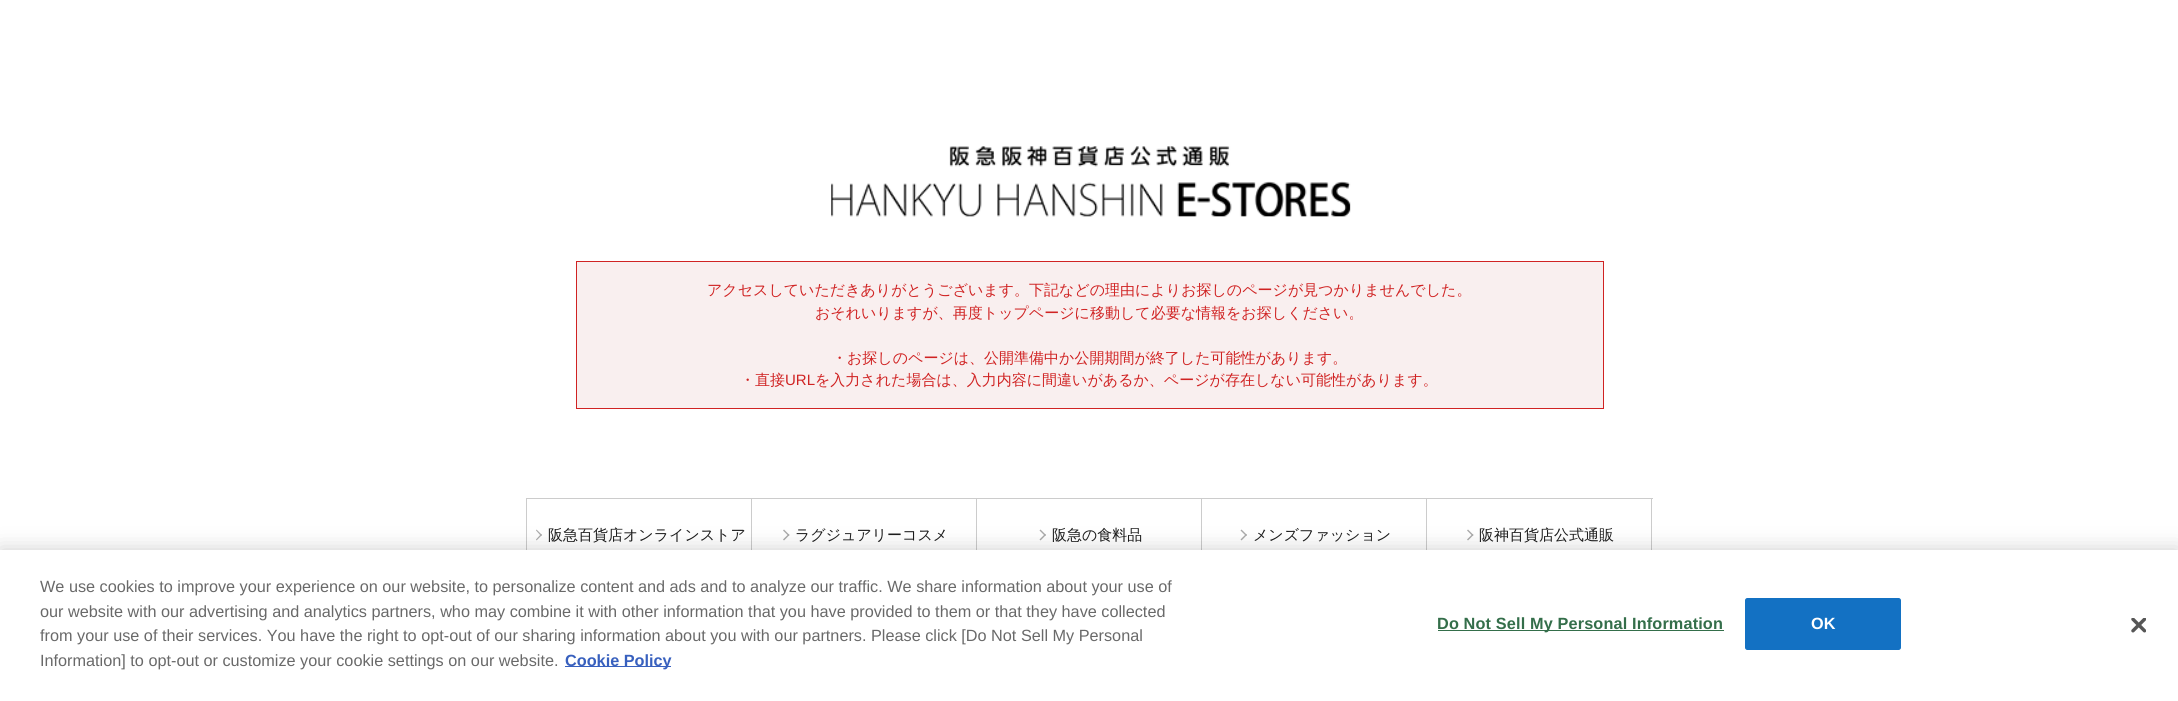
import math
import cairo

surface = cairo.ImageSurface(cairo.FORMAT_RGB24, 2178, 701)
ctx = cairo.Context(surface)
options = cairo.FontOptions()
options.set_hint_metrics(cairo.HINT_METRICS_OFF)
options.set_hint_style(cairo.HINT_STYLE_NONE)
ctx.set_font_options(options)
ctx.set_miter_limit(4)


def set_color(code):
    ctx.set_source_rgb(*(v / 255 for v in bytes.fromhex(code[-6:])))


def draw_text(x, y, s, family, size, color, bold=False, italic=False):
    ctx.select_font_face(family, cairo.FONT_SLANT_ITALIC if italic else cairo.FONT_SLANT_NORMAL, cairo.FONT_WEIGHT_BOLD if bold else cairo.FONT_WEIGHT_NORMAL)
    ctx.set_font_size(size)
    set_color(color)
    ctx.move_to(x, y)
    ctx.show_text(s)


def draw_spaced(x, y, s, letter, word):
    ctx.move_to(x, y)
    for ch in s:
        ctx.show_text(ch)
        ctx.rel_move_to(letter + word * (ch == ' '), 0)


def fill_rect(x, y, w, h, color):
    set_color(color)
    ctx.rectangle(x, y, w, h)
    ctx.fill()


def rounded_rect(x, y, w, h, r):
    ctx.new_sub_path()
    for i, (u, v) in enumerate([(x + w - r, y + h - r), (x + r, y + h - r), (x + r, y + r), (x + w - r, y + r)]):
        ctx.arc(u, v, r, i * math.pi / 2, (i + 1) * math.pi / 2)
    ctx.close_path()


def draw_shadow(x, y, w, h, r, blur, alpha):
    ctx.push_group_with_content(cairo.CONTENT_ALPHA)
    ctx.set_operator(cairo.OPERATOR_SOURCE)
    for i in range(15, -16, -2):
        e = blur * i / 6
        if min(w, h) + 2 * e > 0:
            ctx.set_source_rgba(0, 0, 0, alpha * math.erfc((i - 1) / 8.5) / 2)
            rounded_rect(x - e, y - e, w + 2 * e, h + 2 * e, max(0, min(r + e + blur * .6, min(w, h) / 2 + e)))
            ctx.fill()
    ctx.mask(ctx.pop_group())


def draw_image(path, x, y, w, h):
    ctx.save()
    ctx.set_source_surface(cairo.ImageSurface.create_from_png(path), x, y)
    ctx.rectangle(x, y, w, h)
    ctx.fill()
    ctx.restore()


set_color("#ffffff")
ctx.paint()
draw_image("assets/img1.png", 831, 146, 520, 71)
set_color("#f9efef")
ctx.rectangle(576.5, 261.5, 1027, 147)
ctx.fill_preserve()
set_color("#d02323")
ctx.set_line_width(1)
ctx.stroke()
draw_text(707, 295, "アクセスしていただきありがとうございます。下記などの理由によりお探しのページが見つかりませんでした。", "WenQuanYi Zen Hei Medium", 15, "#d02323")
draw_text(815, 318, "おそれいりますが、再度トップページに移動して必要な情報をお探しください。", "WenQuanYi Zen Hei Medium", 15, "#d02323")
draw_text(832, 363, "・お探しのページは、公開準備中か公開期間が終了した可能性があります。", "WenQuanYi Zen Hei Medium", 15, "#d02323")
draw_text(740, 385, "・直接", "WenQuanYi Zen Hei Medium", 15, "#d02323")
draw_text(785, 385, "URL", "Liberation Sans", 15, "#d02323")
draw_text(815, 385, "を入力された場合は、入力内容に間違いがあるか、ページが存在しない可能性があります。", "WenQuanYi Zen Hei Medium", 15, "#d02323")
fill_rect(526, 498, 1127, 1, "#cccccc")
fill_rect(526, 498, 1, 52, "#cccccc")
fill_rect(751, 499, 1, 51, "#cccccc")
set_color("#aaaaaa")
ctx.new_path()
ctx.move_to(536, 530.5)
ctx.line_to(536.5, 529.5)
ctx.line_to(542, 535)
ctx.line_to(541, 536)
ctx.close_path()
ctx.fill()
ctx.new_path()
ctx.move_to(536, 539.5)
ctx.line_to(541, 534)
ctx.line_to(542, 535)
ctx.line_to(536.5, 540.5)
ctx.close_path()
ctx.fill()
draw_text(548, 540, "阪急百貨店オンラインストア", "WenQuanYi Zen Hei Medium", 15, "#1c1c1c")
fill_rect(976, 499, 1, 51, "#cccccc")
set_color("#aaaaaa")
ctx.new_path()
ctx.move_to(783, 530.5)
ctx.line_to(784, 529.5)
ctx.line_to(789.5, 535)
ctx.line_to(788.5, 536)
ctx.close_path()
ctx.fill()
ctx.new_path()
ctx.move_to(783, 539.5)
ctx.line_to(788.5, 534)
ctx.line_to(789.5, 535)
ctx.line_to(784, 540.5)
ctx.close_path()
ctx.fill()
draw_text(795, 540, "ラグジュアリーコスメ", "WenQuanYi Zen Hei Medium", 15, "#1c1c1c")
fill_rect(1201, 499, 1, 51, "#cccccc")
set_color("#aaaaaa")
ctx.new_path()
ctx.move_to(1039.5, 530.5)
ctx.line_to(1040.5, 529.5)
ctx.line_to(1046, 535)
ctx.line_to(1045, 536)
ctx.close_path()
ctx.fill()
ctx.new_path()
ctx.move_to(1039.5, 539.5)
ctx.line_to(1045, 534)
ctx.line_to(1046, 535)
ctx.line_to(1040.5, 540.5)
ctx.close_path()
ctx.fill()
draw_text(1052, 540, "阪急の食料品", "WenQuanYi Zen Hei Medium", 15, "#1c1c1c")
fill_rect(1426, 499, 1, 51, "#cccccc")
set_color("#aaaaaa")
ctx.new_path()
ctx.move_to(1240.5, 530.5)
ctx.line_to(1241.5, 529.5)
ctx.line_to(1247, 535)
ctx.line_to(1246, 536)
ctx.close_path()
ctx.fill()
ctx.new_path()
ctx.move_to(1240.5, 539.5)
ctx.line_to(1246, 534)
ctx.line_to(1247, 535)
ctx.line_to(1241.5, 540.5)
ctx.close_path()
ctx.fill()
draw_text(1253, 540, "メンズファッション", "WenQuanYi Zen Hei Medium", 15, "#1c1c1c")
fill_rect(1651, 499, 1, 51, "#cccccc")
set_color("#aaaaaa")
ctx.new_path()
ctx.move_to(1467, 530.5)
ctx.line_to(1468, 529.5)
ctx.line_to(1473.5, 535)
ctx.line_to(1472.5, 536)
ctx.close_path()
ctx.fill()
ctx.new_path()
ctx.move_to(1467, 539.5)
ctx.line_to(1472.5, 534)
ctx.line_to(1473.5, 535)
ctx.line_to(1468, 540.5)
ctx.close_path()
ctx.fill()
draw_text(1479, 540, "阪神百貨店公式通販", "WenQuanYi Zen Hei Medium", 15, "#1c1c1c")
set_color("#000000")
draw_shadow(0, 550, 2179, 151, 0, 11, 0.2)
fill_rect(0, 550, 2178, 151, "#ffffff")
draw_text(40, 592, "We use cookies to improve your experience on our website, to personalize content and ads and to analyze our traffic. We share information about your use of", "Liberation Sans", 16.25, "#696969")
draw_text(40, 617, "our website with our advertising and analytics partners, who may combine it with other information that you have provided to them or that they have collected", "Liberation Sans", 16.25, "#696969")
draw_text(40, 641, "from your use of their services. You have the right to opt-out of our sharing information about you with our partners. Please click [Do Not Sell My Personal", "Liberation Sans", 16.25, "#696969")
draw_text(40, 666, "Information] to opt-out or customize your cookie settings on our website.", "Liberation Sans", 16.25, "#696969")
fill_rect(565, 666, 106, 1, "#3860be")
draw_text(565, 666, "Cookie Policy", "Liberation Sans", 16.25, "#3860be", bold=True)
fill_rect(1438, 630, 286, 1, "#346e4a")
draw_spaced(1437, 629, "Do Not Sell My Personal Information", 0.15, 0)
set_color("#1371c3")
rounded_rect(1745.5, 598.5, 155, 51, 2)
ctx.fill_preserve()
ctx.stroke()
set_color("#ffffff")
draw_spaced(1811, 629, "OK", 0.15, 0)
draw_image("assets/img2.png", 2131, 618, 15, 15)
surface.write_to_png("output.png")
